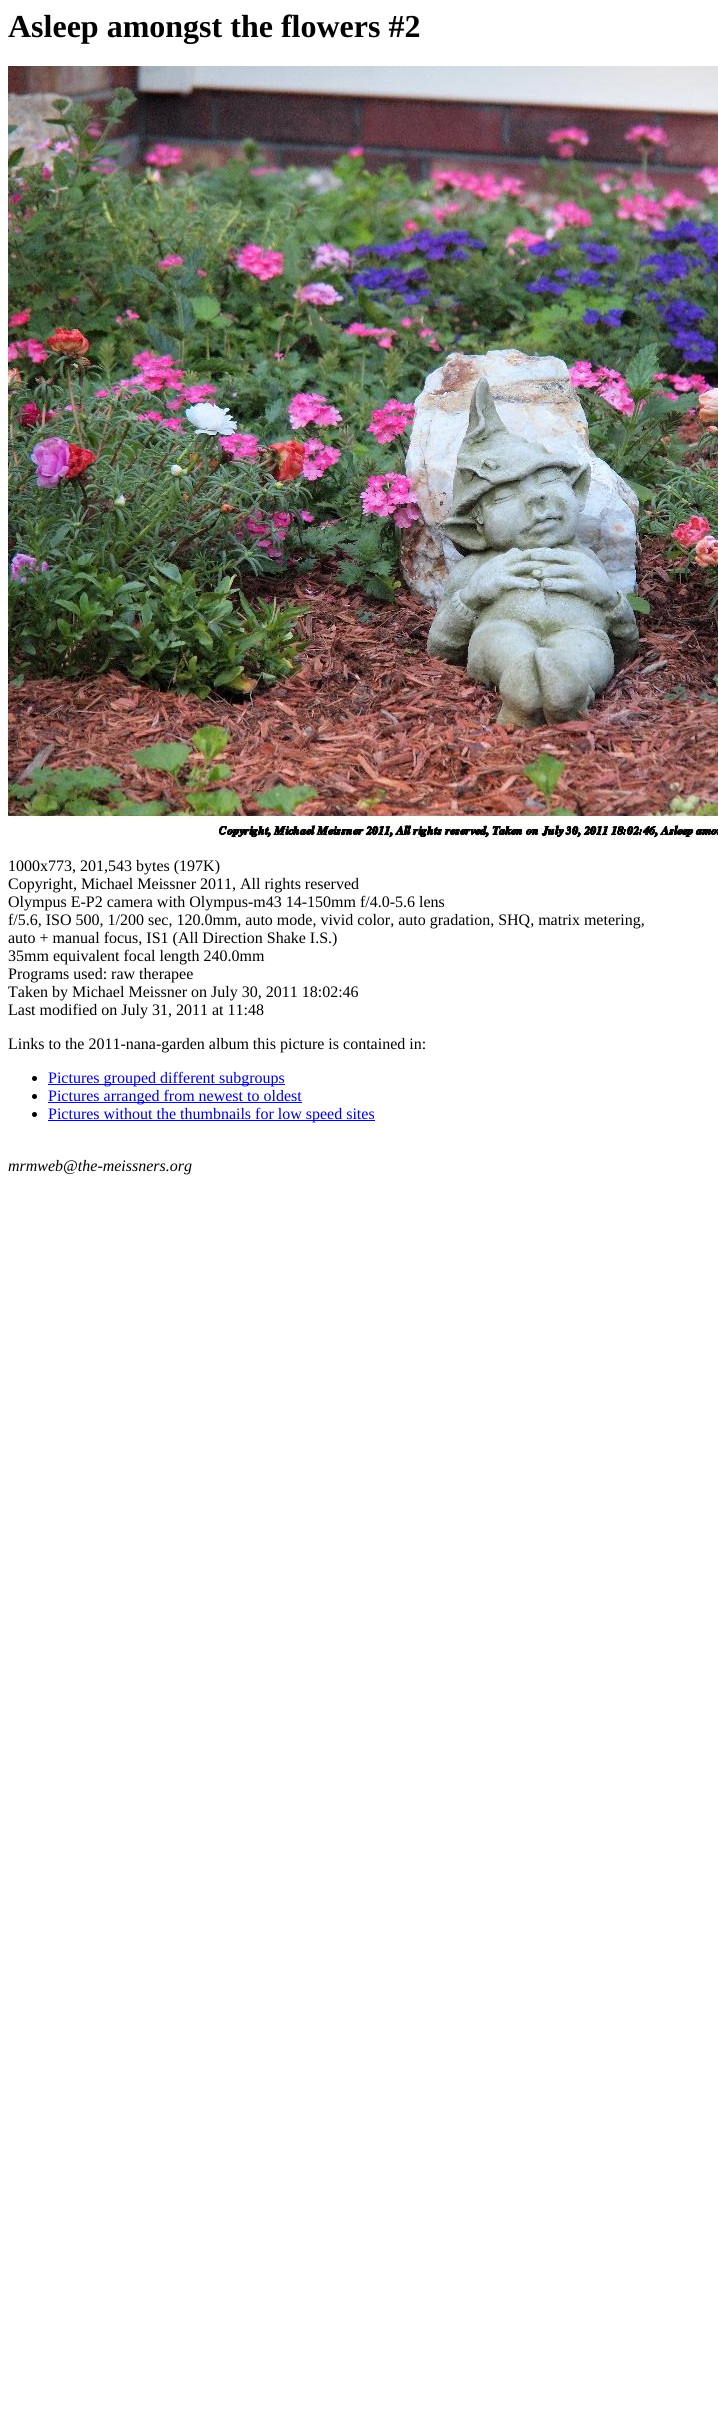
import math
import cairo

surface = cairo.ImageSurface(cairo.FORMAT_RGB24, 718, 2410)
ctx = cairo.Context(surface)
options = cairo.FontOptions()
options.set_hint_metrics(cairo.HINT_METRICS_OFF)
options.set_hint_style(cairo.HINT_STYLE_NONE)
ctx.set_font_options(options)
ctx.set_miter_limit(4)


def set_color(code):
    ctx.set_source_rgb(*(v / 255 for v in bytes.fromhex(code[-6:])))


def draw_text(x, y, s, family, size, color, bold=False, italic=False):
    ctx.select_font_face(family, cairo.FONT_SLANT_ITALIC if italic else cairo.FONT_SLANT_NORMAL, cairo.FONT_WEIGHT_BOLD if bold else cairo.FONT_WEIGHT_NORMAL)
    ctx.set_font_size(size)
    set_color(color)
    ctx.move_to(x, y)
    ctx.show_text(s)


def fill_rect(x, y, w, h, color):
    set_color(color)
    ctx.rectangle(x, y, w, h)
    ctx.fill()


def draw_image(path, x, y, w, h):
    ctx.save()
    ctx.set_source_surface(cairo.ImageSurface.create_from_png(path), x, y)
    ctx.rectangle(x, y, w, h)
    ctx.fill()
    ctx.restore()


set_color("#ffffff")
ctx.paint()
draw_text(8, 37, "Asleep amongst the flowers #2", "Liberation Serif", 32, "#000000", bold=True)
draw_image("assets/img1.png", 8, 66, 710, 773)
draw_text(8, 871, "1000x773, 201,543 bytes (197K)", "Liberation Serif", 16, "#000000")
draw_text(8, 889, "Copyright, Michael Meissner 2011, All rights reserved", "Liberation Serif", 16, "#000000")
draw_text(8, 907, "Olympus E-P2 camera with Olympus-m43 14-150mm f/4.0-5.6 lens", "Liberation Serif", 16, "#000000")
draw_text(8, 925, "f/5.6, ISO 500, 1/200 sec, 120.0mm, auto mode, vivid color, auto gradation, SHQ, matrix metering,", "Liberation Serif", 16, "#000000")
draw_text(8, 943, "auto + manual focus, IS1 (All Direction Shake I.S.)", "Liberation Serif", 16, "#000000")
draw_text(8, 961, "35mm equivalent focal length 240.0mm", "Liberation Serif", 16, "#000000")
draw_text(8, 979, "Programs used: raw therapee", "Liberation Serif", 16, "#000000")
draw_text(8, 997, "Taken by Michael Meissner on July 30, 2011 18:02:46", "Liberation Serif", 16, "#000000")
draw_text(8, 1015, "Last modified on July 31, 2011 at 11:48", "Liberation Serif", 16, "#000000")
draw_text(8, 1049, "Links to the 2011-nana-garden album this picture is contained in:", "Liberation Serif", 16, "#000000")
ctx.new_path()
ctx.arc(34.5, 1078.5, 2.5, 0, 2 * math.pi)
ctx.fill()
fill_rect(48, 1084, 237, 1, "#0000ee")
draw_text(48, 1083, "Pictures grouped different subgroups", "Liberation Serif", 16, "#0000ee")
set_color("#000000")
ctx.new_path()
ctx.arc(34.5, 1096.5, 2.5, 0, 2 * math.pi)
ctx.fill()
fill_rect(48, 1102, 254, 1, "#0000ee")
draw_text(48, 1101, "Pictures arranged from newest to oldest", "Liberation Serif", 16, "#0000ee")
set_color("#000000")
ctx.new_path()
ctx.arc(34.5, 1114.5, 2.5, 0, 2 * math.pi)
ctx.fill()
fill_rect(48, 1120, 327, 1, "#0000ee")
draw_text(48, 1119, "Pictures without the thumbnails for low speed sites", "Liberation Serif", 16, "#0000ee")
draw_text(8, 1171, "mrmweb@the-meissners.org", "Liberation Serif", 16, "#000000", italic=True)
surface.write_to_png("output.png")
